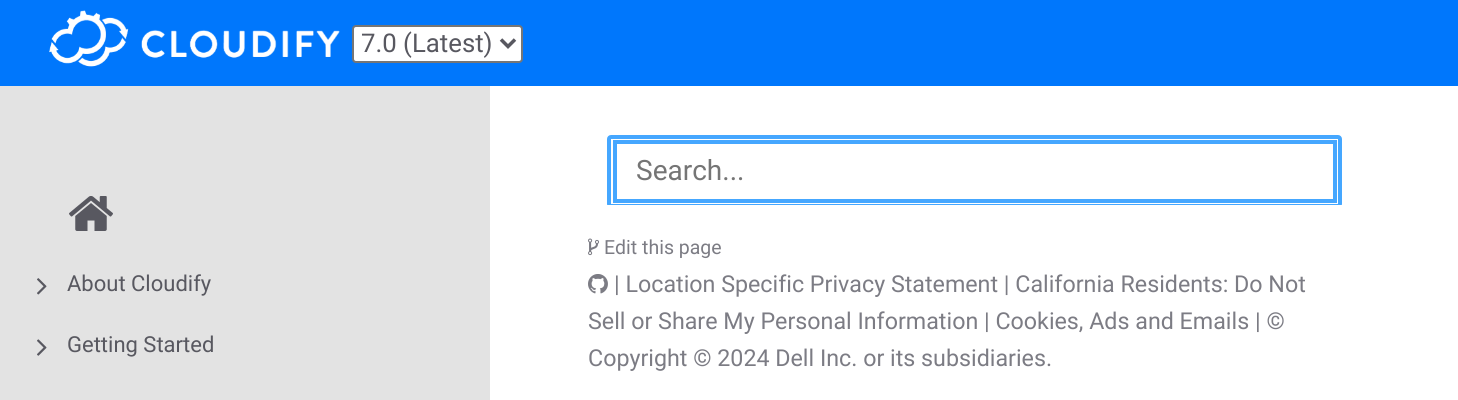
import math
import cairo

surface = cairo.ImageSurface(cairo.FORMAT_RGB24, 1458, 400)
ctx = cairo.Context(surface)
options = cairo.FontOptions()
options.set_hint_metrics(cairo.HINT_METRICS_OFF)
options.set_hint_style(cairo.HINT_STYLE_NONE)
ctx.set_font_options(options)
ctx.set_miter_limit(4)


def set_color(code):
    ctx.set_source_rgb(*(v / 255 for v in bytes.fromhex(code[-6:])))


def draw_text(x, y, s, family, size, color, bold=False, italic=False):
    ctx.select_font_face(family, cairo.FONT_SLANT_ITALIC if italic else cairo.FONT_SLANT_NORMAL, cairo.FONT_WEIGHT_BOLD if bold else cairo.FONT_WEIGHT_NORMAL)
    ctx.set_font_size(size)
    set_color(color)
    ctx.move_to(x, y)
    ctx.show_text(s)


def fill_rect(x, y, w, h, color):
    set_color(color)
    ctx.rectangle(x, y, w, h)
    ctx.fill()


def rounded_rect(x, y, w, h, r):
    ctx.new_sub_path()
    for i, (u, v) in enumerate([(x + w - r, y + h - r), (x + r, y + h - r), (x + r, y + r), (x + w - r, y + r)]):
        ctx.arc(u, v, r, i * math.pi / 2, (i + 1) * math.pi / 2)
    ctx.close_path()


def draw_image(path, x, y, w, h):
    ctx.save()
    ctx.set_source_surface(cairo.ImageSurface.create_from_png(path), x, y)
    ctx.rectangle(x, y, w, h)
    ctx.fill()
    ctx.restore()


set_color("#ffffff")
ctx.paint()
fill_rect(0, 0, 1458, 86, "#0077fc")
draw_image("assets/img1.png", 49, 10, 291, 57)
set_color("#ffffff")
rounded_rect(353, 26, 169, 36, 3)
ctx.fill_preserve()
set_color("#767676")
ctx.stroke()
ctx.new_path()
ctx.move_to(501, 39.5)
ctx.line_to(508, 46.5)
ctx.line_to(515, 39.5)
set_color("#585860")
ctx.set_line_width(3.5)
ctx.stroke()
draw_text(361, 52, "7.0 (Latest)", "Roboto", 25.75, "#585860")
ctx.save()
ctx.rectangle(490, 86, 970, 119)
ctx.clip()
rounded_rect(609, 137, 731, 69, 2)
set_color("#45a7ff")
ctx.set_line_width(4)
ctx.stroke()
ctx.restore()
ctx.rectangle(615, 142, 720, 59)
set_color("#45a7ff")
ctx.set_line_width(4)
ctx.stroke()
draw_text(636, 180, "Search...", "Roboto", 28, "#757575")
fill_rect(0, 86, 490, 314, "#e3e3e3")
draw_image("assets/img2.png", 69, 196, 44, 35)
draw_image("assets/img3.png", 37, 278, 10, 17)
draw_text(67, 291, "About Cloudify", "Roboto", 22, "#585860")
draw_image("assets/img4.png", 37, 339, 10, 17)
draw_text(67, 352, "Getting Started", "Roboto", 22, "#585860")
draw_image("assets/img5.png", 588, 238, 11, 18)
draw_text(604, 254, "Edit this page", "Roboto", 19.5, "#7c7c84")
draw_image("assets/img6.png", 588, 274, 20, 20)
draw_text(614, 292, "| Location Specific Privacy Statement | California Residents: Do Not", "Roboto", 23.25, "#7c7c84")
draw_text(588, 329, "Sell or Share My Personal Information | Cookies, Ads and Emails | ©", "Roboto", 23.25, "#7c7c84")
draw_text(588, 366, "Copyright © 2024 Dell Inc. or its subsidiaries.", "Roboto", 23.25, "#7c7c84")
surface.write_to_png("output.png")
